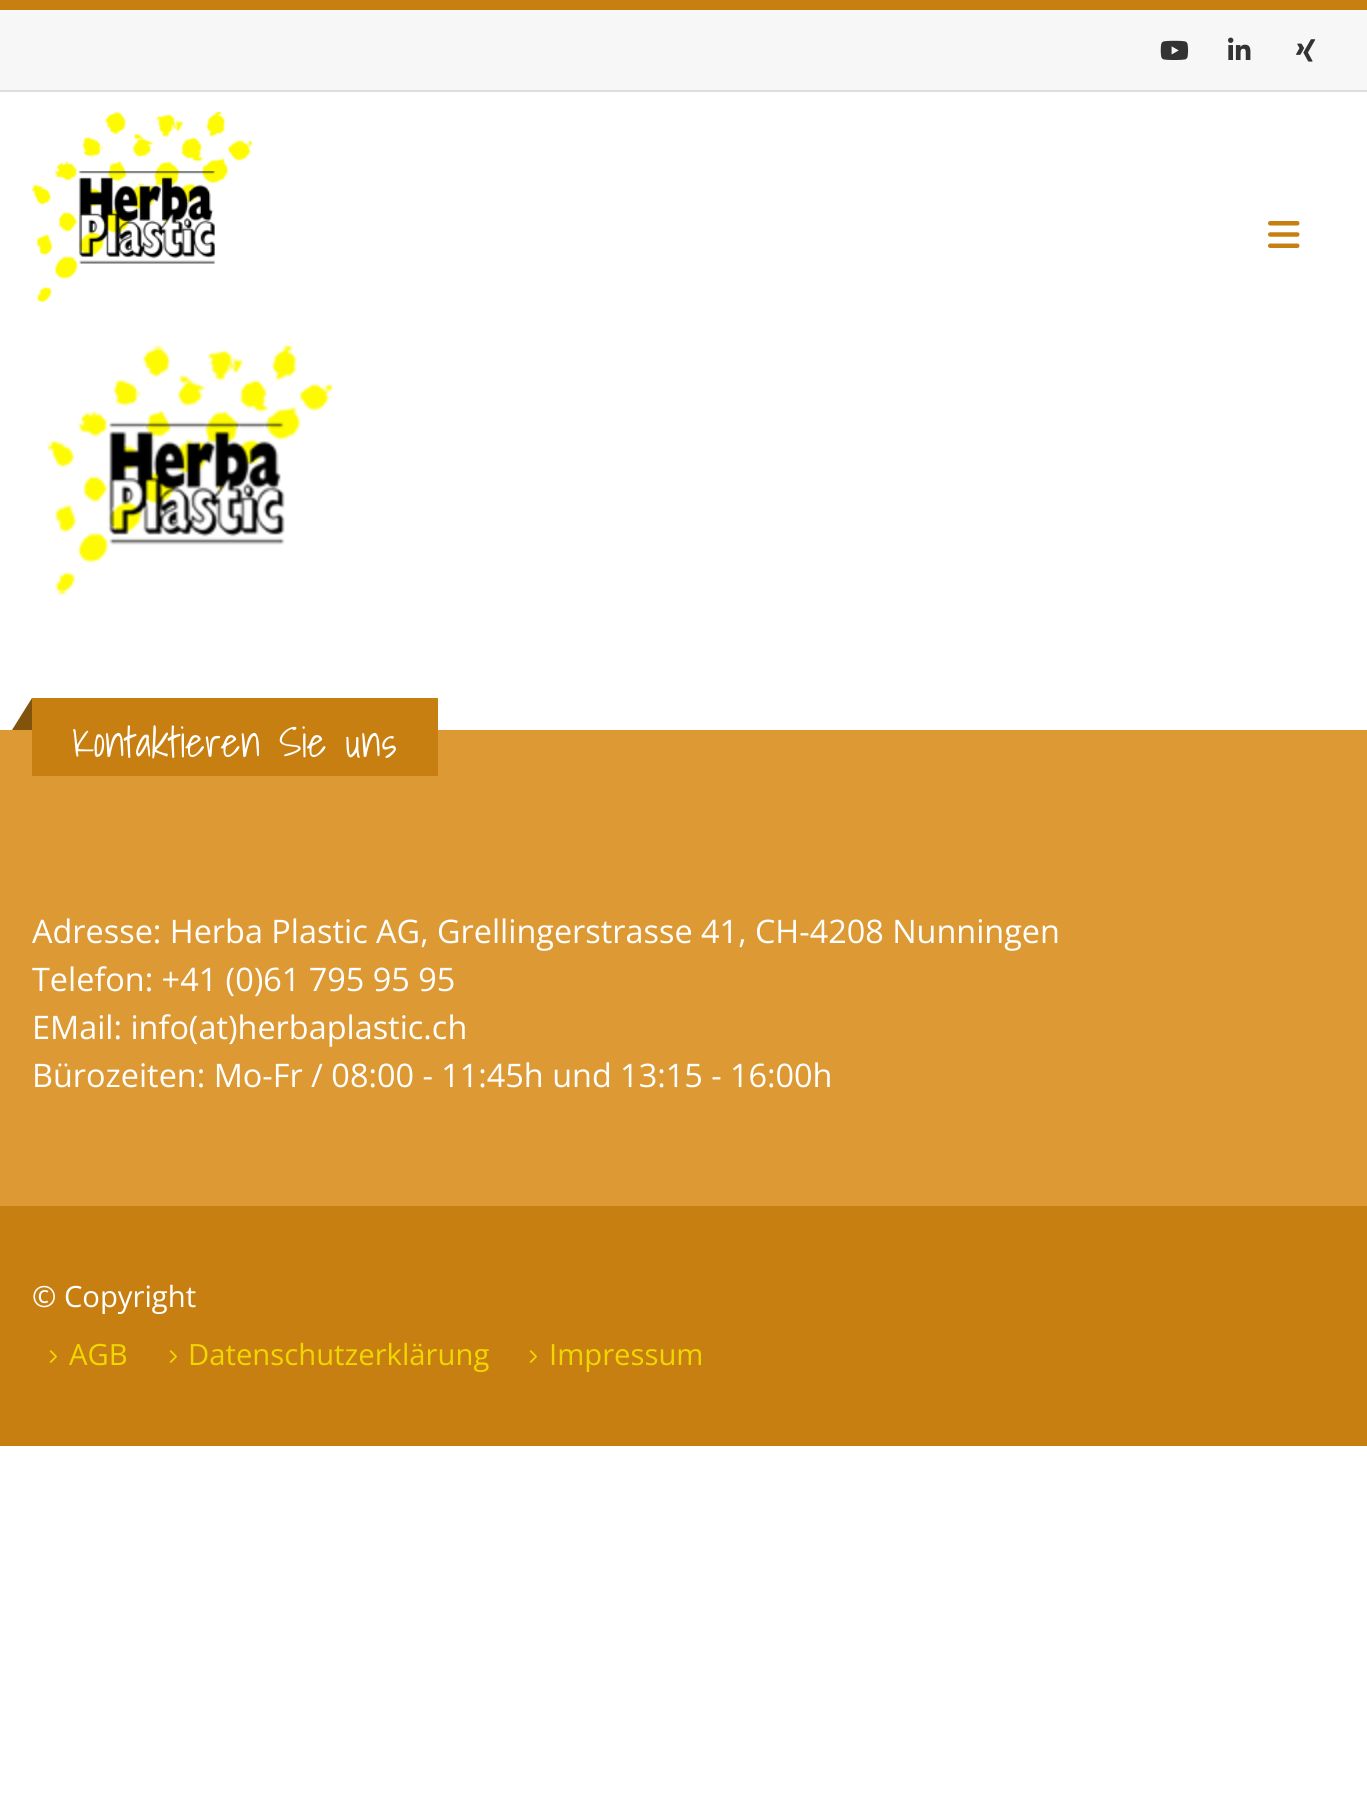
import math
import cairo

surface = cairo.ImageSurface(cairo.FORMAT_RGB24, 1367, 1814)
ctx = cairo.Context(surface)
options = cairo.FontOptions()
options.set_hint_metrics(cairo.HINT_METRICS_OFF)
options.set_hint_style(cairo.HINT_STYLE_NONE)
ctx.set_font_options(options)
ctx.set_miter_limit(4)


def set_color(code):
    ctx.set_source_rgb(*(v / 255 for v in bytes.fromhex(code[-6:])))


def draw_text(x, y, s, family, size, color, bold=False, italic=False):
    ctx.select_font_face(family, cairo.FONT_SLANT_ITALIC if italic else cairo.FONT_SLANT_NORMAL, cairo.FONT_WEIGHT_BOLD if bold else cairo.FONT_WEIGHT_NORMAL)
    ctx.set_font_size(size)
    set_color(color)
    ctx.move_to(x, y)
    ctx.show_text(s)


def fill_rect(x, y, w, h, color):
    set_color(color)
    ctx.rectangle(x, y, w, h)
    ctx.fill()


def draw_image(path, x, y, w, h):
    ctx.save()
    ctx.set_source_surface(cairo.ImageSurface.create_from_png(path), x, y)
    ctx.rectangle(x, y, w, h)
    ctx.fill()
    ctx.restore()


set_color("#ffffff")
ctx.paint()
fill_rect(0, 0, 1367, 10, "#c87f12")
fill_rect(0, 10, 1367, 80, "#f7f7f7")
fill_rect(0, 90, 1367, 2, "#dddddd")
draw_image("assets/img1.png", 1160, 40, 29, 20)
draw_image("assets/img2.png", 1228, 37, 23, 23)
draw_image("assets/img3.png", 1296, 39, 20, 23)
draw_image("assets/img4.png", 32, 112, 220, 190)
draw_image("assets/img5.png", 1268, 221, 32, 27)
draw_image("assets/img6.png", 47, 345, 286, 250)
fill_rect(0, 730, 1367, 476, "#dd9933")
fill_rect(32, 698, 406, 78, "#c87f12")
set_color("#82530c")
ctx.new_path()
ctx.move_to(32, 698)
ctx.line_to(32, 730)
ctx.line_to(12, 730)
ctx.close_path()
ctx.fill()
draw_text(72, 757, "Kontaktieren Sie uns", "Shadows Into Light Light", 41.5, "#ffffff")
draw_text(32, 943, "Adresse: Herba Plastic AG, Grellingerstrasse 41, CH-4208 Nunningen", "Open Sans", 32.4, "#ffffff")
draw_text(32, 991, "Telefon: +41 (0)61 795 95 95", "Open Sans", 32.4, "#ffffff")
draw_text(32, 1039, "EMail: info(at)herbaplastic.ch", "Open Sans", 32.4, "#ffffff")
draw_text(32, 1087, "Bürozeiten: Mo-Fr / 08:00 - 11:45h und 13:15 - 16:00h", "Open Sans", 32.4, "#ffffff")
fill_rect(0, 1206, 1367, 240, "#c87f12")
draw_text(32, 1307, "© Copyright", "Open Sans", 29.25, "#ffffff")
draw_image("assets/img7.png", 49, 1350, 8, 13)
draw_text(69, 1365, "AGB", "Open Sans", 29.25, "#efd700")
draw_image("assets/img7.png", 169, 1350, 8, 13)
draw_text(188, 1365, "Datenschutzerklärung", "Open Sans", 29.25, "#efd700")
draw_image("assets/img7.png", 529, 1350, 8, 13)
draw_text(549, 1365, "Impressum", "Open Sans", 29.25, "#efd700")
surface.write_to_png("output.png")
